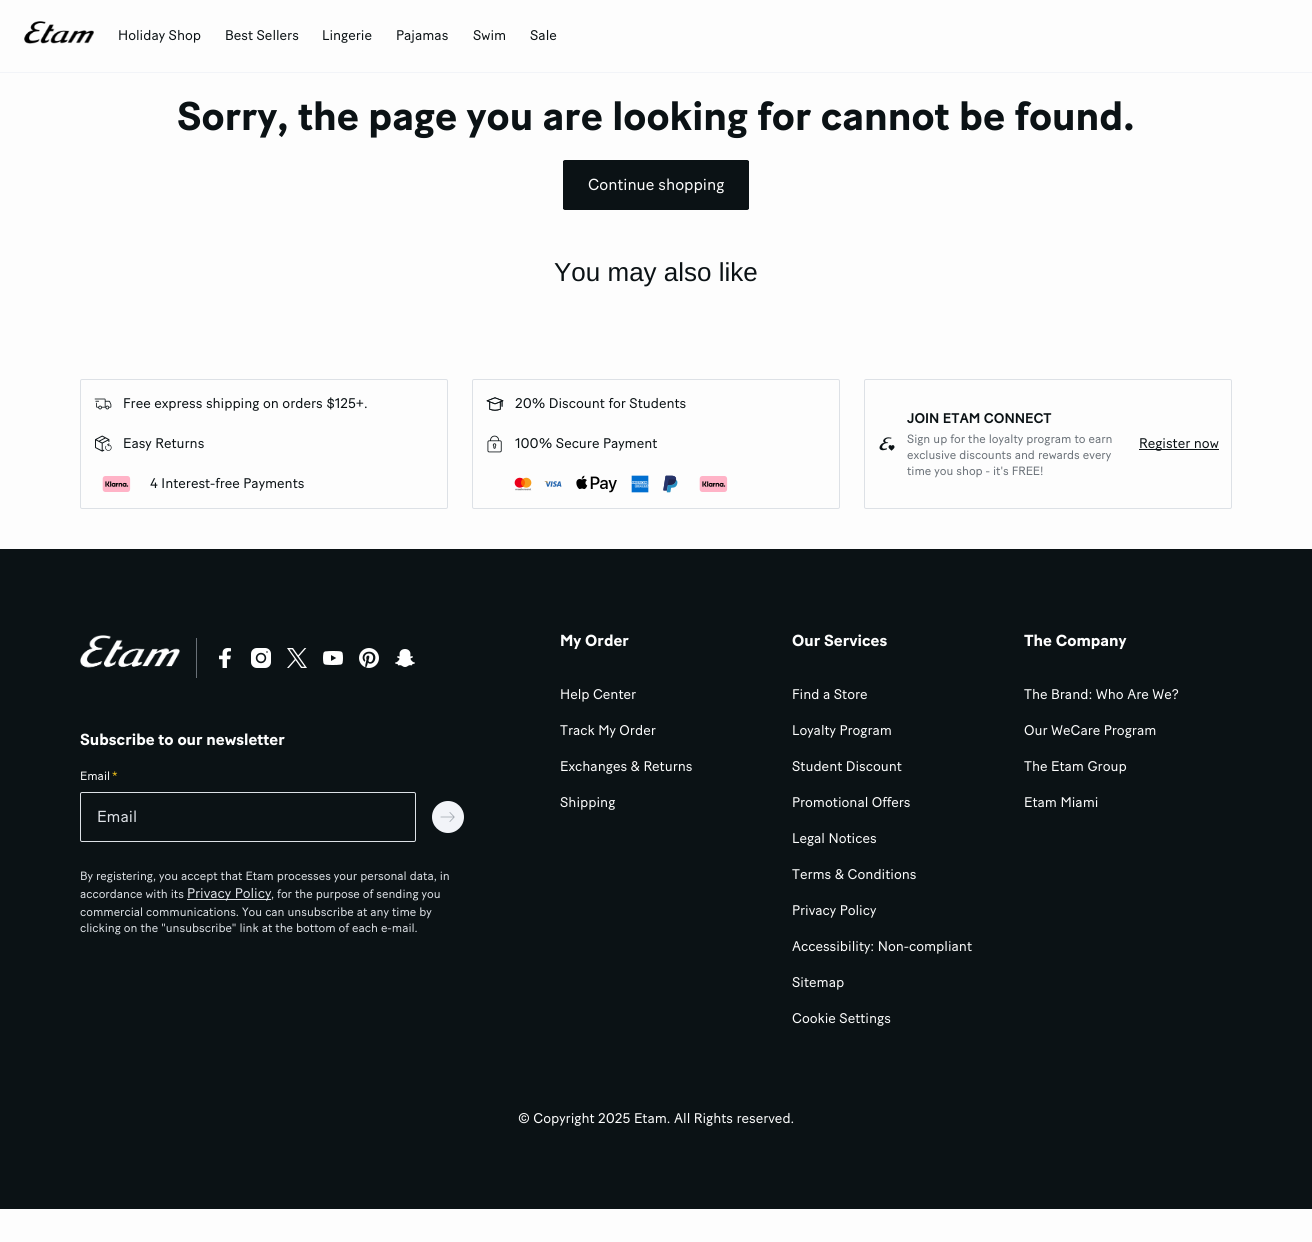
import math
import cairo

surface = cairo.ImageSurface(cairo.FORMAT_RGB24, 1312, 1242)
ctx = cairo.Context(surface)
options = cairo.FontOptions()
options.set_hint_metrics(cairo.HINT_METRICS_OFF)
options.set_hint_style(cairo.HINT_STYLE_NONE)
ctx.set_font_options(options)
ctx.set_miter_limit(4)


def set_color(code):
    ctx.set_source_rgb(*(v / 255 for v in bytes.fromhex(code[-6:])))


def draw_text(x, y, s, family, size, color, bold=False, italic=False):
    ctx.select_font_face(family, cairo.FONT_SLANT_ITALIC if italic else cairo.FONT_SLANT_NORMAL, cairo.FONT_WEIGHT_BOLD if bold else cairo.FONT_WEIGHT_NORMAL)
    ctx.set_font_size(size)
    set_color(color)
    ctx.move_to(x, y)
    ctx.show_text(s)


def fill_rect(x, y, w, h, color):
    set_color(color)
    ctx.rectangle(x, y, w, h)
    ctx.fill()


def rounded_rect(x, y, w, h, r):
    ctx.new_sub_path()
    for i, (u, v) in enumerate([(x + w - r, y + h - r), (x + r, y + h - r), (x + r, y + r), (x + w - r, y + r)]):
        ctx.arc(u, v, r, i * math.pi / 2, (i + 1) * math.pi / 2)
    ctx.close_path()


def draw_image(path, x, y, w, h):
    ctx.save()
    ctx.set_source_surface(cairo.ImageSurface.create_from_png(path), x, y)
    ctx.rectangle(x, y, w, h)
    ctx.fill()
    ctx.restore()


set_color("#fdfdfd")
ctx.paint()
fill_rect(0, 72, 1312, 1, "#f2f4f8")
draw_image("assets/img1.png", 24, 21, 70, 23)
draw_text(118, 40, "Holiday Shop", "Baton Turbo", 14, "#0b1215")
draw_text(225, 40, "Best Sellers", "Baton Turbo", 14, "#0b1215")
draw_text(322, 40, "Lingerie", "Baton Turbo", 14, "#0b1215")
draw_text(396, 40, "Pajamas", "Baton Turbo", 14, "#0b1215")
draw_text(473, 40, "Swim", "Baton Turbo", 14, "#0b1215")
draw_text(530, 40, "Sale", "Baton Turbo", 14, "#0b1215")
draw_text(177, 130, "Sorry, the page you are looking for cannot be found.", "Baton Turbo", 40, "#0b1215", bold=True)
ctx.save()
rounded_rect(563, 160, 186, 50, 2)
ctx.clip()
fill_rect(563, 161, 186, 48, "#0b1215")
ctx.restore()
rounded_rect(563.5, 160.5, 185, 49, 1.5)
ctx.set_line_width(1)
ctx.stroke()
draw_text(588, 190, "Continue shopping", "Baton Turbo", 16, "#fdfdfd")
draw_text(554, 281, "You may also like", "Liberation Sans", 26, "#0b1215")
rounded_rect(80.5, 379.5, 367, 129, 1.5)
set_color("#dde1e6")
ctx.stroke()
draw_image("assets/img2.png", 94, 398, 18, 12)
draw_text(123, 408, "Free express shipping on orders $125+.", "Baton Turbo", 14, "#0b1215")
draw_image("assets/img3.png", 95, 435, 17, 17)
draw_text(123, 448, "Easy Returns", "Baton Turbo", 14, "#0b1215")
draw_image("assets/img4.png", 102, 476, 29, 16)
draw_text(150, 488, "4 Interest-free Payments", "Baton Turbo", 14, "#0b1215")
rounded_rect(472.5, 379.5, 367, 129, 1.5)
set_color("#dde1e6")
ctx.stroke()
draw_image("assets/img5.png", 486, 397, 18, 14)
draw_text(515, 408, "20% Discount for Students", "Baton Turbo", 14, "#0b1215")
draw_image("assets/img6.png", 487, 435, 15, 18)
draw_text(515, 448, "100% Secure Payment", "Baton Turbo", 14, "#0b1215")
draw_image("assets/img7.png", 514, 477, 18, 14)
draw_image("assets/img8.png", 544, 481, 18, 6)
draw_image("assets/img9.png", 576, 475, 41, 18)
draw_image("assets/img10.png", 631, 475, 18, 18)
draw_image("assets/img11.png", 663, 475, 15, 18)
draw_image("assets/img4.png", 699, 476, 29, 16)
rounded_rect(864.5, 379.5, 367, 129, 1.5)
set_color("#dde1e6")
ctx.stroke()
draw_image("assets/img12.png", 879, 437, 16, 14)
draw_text(907, 423, "JOIN ETAM CONNECT", "Baton Turbo Medium", 14, "#0b1215")
draw_text(907, 443, "Sign up for the loyalty program to earn", "Baton Turbo", 12, "#697077")
draw_text(907, 459, "exclusive discounts and rewards every", "Baton Turbo", 12, "#697077")
draw_text(907, 475, "time you shop - it's FREE!", "Baton Turbo", 12, "#697077")
fill_rect(1139, 449, 80, 1, "#0b1215")
draw_text(1139, 448, "Register now", "Baton Turbo", 14, "#0b1215")
fill_rect(0, 549, 1312, 660, "#0b1215")
draw_image("assets/img13.png", 80, 635, 100, 33)
fill_rect(196, 638, 1, 40, "#697077")
draw_image("assets/img14.png", 219, 648, 12, 20)
draw_image("assets/img15.png", 251, 648, 20, 20)
draw_image("assets/img16.png", 287, 648, 20, 20)
draw_image("assets/img17.png", 323, 651, 20, 14)
draw_image("assets/img18.png", 359, 648, 20, 20)
draw_image("assets/img19.png", 395, 649, 20, 18)
draw_text(560, 646, "My Order", "Baton Turbo", 16, "#fdfdfd", bold=True)
draw_text(560, 699, "Help Center", "Baton Turbo", 14, "#fdfdfd")
draw_text(560, 735, "Track My Order", "Baton Turbo", 14, "#fdfdfd")
draw_text(560, 771, "Exchanges & Returns", "Baton Turbo", 14, "#fdfdfd")
draw_text(560, 807, "Shipping", "Baton Turbo", 14, "#fdfdfd")
draw_text(792, 646, "Our Services", "Baton Turbo", 16, "#fdfdfd", bold=True)
draw_text(792, 699, "Find a Store", "Baton Turbo", 14, "#fdfdfd")
draw_text(792, 735, "Loyalty Program", "Baton Turbo", 14, "#fdfdfd")
draw_text(792, 771, "Student Discount", "Baton Turbo", 14, "#fdfdfd")
draw_text(792, 807, "Promotional Offers", "Baton Turbo", 14, "#fdfdfd")
draw_text(792, 843, "Legal Notices", "Baton Turbo", 14, "#fdfdfd")
draw_text(792, 879, "Terms & Conditions", "Baton Turbo", 14, "#fdfdfd")
draw_text(792, 915, "Privacy Policy", "Baton Turbo", 14, "#fdfdfd")
draw_text(792, 951, "Accessibility: Non-compliant", "Baton Turbo", 14, "#fdfdfd")
draw_text(792, 987, "Sitemap", "Baton Turbo", 14, "#fdfdfd")
draw_text(792, 1023, "Cookie Settings", "Baton Turbo", 14, "#fdfdfd")
draw_text(1024, 646, "The Company", "Baton Turbo", 16, "#fdfdfd", bold=True)
draw_text(1024, 699, "The Brand: Who Are We?", "Baton Turbo", 14, "#fdfdfd")
draw_text(1024, 735, "Our WeCare Program", "Baton Turbo", 14, "#fdfdfd")
draw_text(1024, 771, "The Etam Group", "Baton Turbo", 14, "#fdfdfd")
draw_text(1024, 807, "Etam Miami", "Baton Turbo", 14, "#fdfdfd")
draw_text(80, 745, "Subscribe to our newsletter", "Baton Turbo", 16, "#fdfdfd", bold=True)
draw_text(80, 780, "Email", "Baton Turbo", 12, "#fdfdfd")
draw_text(112, 780, "*", "Baton Turbo", 12, "#f1c21b")
rounded_rect(80.5, 792.5, 335, 49, 1.5)
set_color("#dde1e6")
ctx.stroke()
draw_text(97, 822, "Email", "Baton Turbo", 16, "#dde1e6")
set_color("#f2f4f8")
ctx.new_path()
ctx.arc(448, 817, 16, 0, 2 * math.pi)
ctx.fill()
draw_image("assets/img20.png", 440, 812, 15, 10)
draw_text(80, 880, "By registering, you accept that Etam processes your personal data, in", "Baton Turbo", 12, "#dde1e6")
draw_text(80, 898, "accordance with its", "Baton Turbo", 12, "#dde1e6")
fill_rect(187, 899, 84, 1, "#dde1e6")
draw_text(187, 898, "Privacy Policy", "Baton Turbo", 14, "#dde1e6")
draw_text(271, 898, ", for the purpose of sending you", "Baton Turbo", 12, "#dde1e6")
draw_text(80, 916, "commercial communications. You can unsubscribe at any time by", "Baton Turbo", 12, "#dde1e6")
draw_text(80, 932, "clicking on the \"unsubscribe\" link at the bottom of each e-mail.", "Baton Turbo", 12, "#dde1e6")
draw_text(518, 1123, "© Copyright 2025 Etam. All Rights reserved.", "Baton Turbo", 14, "#fdfdfd")
surface.write_to_png("output.png")
